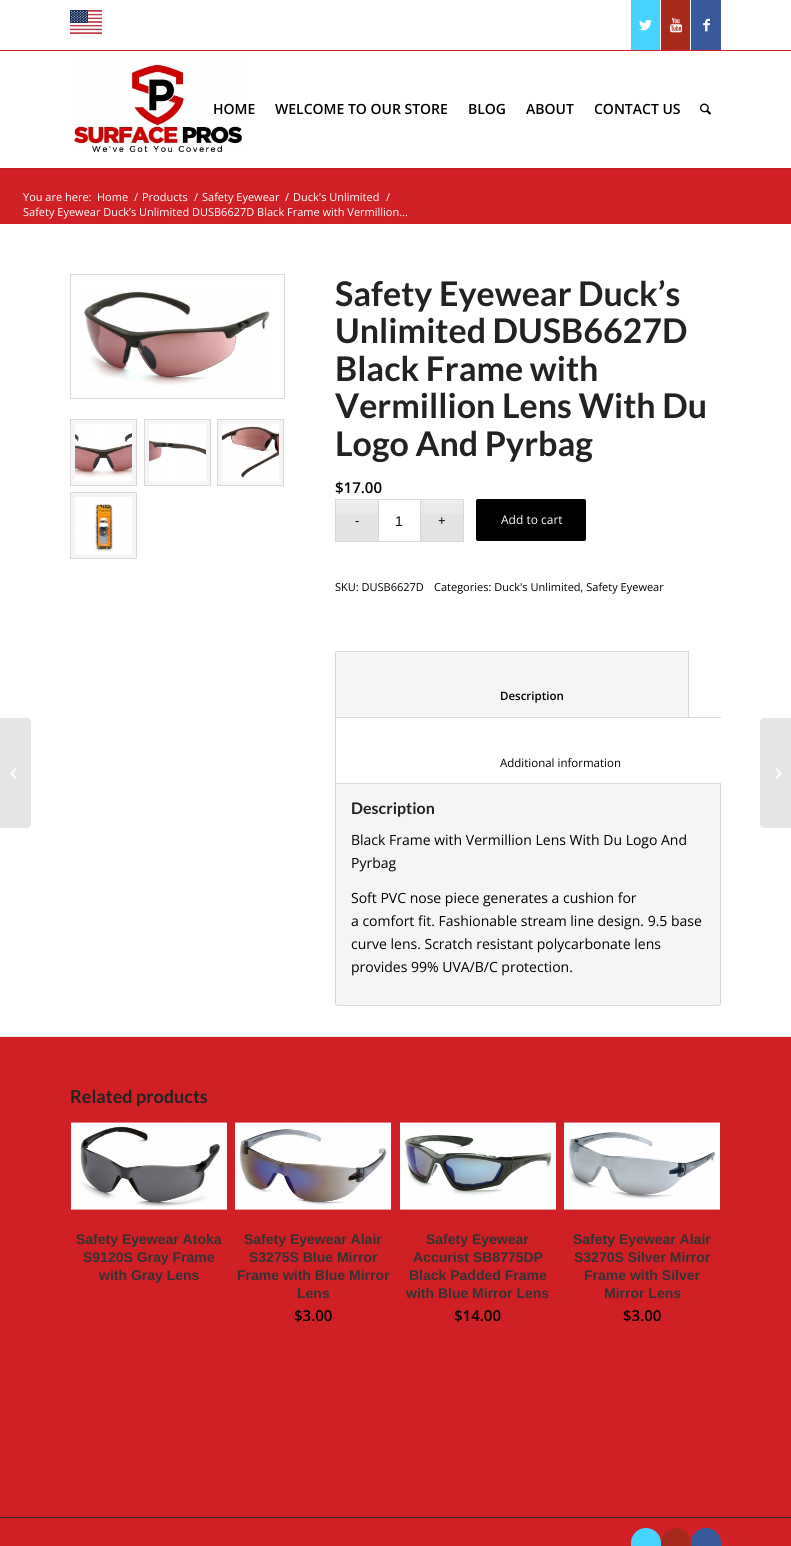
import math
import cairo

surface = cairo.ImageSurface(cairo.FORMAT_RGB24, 791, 1546)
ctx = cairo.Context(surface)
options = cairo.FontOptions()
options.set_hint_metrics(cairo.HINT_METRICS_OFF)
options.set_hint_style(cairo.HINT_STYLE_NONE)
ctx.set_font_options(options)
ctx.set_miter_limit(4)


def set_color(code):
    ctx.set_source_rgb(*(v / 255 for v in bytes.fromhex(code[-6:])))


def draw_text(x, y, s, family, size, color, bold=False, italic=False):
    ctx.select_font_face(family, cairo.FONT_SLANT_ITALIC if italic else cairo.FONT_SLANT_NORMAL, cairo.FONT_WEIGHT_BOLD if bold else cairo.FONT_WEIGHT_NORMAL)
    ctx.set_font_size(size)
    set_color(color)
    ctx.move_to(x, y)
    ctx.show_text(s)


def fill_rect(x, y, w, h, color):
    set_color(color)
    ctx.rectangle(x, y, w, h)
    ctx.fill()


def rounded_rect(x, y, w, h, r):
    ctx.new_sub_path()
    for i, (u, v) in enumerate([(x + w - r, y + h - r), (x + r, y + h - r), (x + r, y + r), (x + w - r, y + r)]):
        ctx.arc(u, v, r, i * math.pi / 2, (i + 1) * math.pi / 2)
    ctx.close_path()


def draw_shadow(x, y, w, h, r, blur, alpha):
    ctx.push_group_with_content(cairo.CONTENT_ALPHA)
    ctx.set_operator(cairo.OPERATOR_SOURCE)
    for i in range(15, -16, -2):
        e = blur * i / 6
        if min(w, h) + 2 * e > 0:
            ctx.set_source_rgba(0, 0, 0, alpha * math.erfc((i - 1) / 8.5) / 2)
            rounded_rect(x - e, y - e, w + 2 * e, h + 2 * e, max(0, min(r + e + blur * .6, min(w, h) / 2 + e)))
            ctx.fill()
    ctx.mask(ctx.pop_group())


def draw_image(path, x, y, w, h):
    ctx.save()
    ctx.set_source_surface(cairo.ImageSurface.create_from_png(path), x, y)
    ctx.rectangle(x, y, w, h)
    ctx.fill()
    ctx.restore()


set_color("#ffffff")
ctx.paint()
fill_rect(0, 168, 791, 56, "#d02026")
set_color("#000000")
draw_shadow(-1, -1, 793, 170, 0, 1, 0.1)
fill_rect(0, 0, 791, 168, "#ffffff")
fill_rect(0, 50, 791, 1, "#d12026")
draw_image("assets/img1.png", 70, 10, 32, 24)
fill_rect(631, 0, 29, 50, "#46d4fe")
draw_image("assets/img2.png", 639, 19, 13, 12)
fill_rect(661, 0, 29, 50, "#a72b1d")
draw_image("assets/img3.png", 670, 17, 13, 16)
fill_rect(691, 0, 30, 50, "#37589b")
draw_image("assets/img4.png", 703, 18, 7, 14)
draw_image("assets/img5.png", 72, 63, 171, 89)
draw_text(213, 114, "HOME", "Open Sans SemiBold", 14, "#000000")
draw_text(275, 114, "WELCOME TO OUR STORE", "Open Sans SemiBold", 14, "#000000")
draw_text(468, 114, "BLOG", "Open Sans SemiBold", 14, "#000000")
draw_text(526, 114, "ABOUT", "Open Sans SemiBold", 14, "#000000")
draw_text(594, 114, "CONTACT US", "Open Sans SemiBold", 14, "#000000")
draw_image("assets/img6.png", 700, 103, 11, 12)
set_color("#e6e6e6")
ctx.new_path()
ctx.move_to(0, 718)
ctx.line_to(27, 718)
ctx.curve_to(29, 718, 31, 720, 31, 722)
ctx.line_to(31, 824)
ctx.curve_to(31, 826, 29, 828, 27, 828)
ctx.line_to(0, 828)
ctx.close_path()
ctx.fill()
draw_image("assets/img7.png", 10, 768, 7, 11)
draw_text(23, 201, "You are here:", "Open Sans", 11, "#ffffff")
draw_text(97, 201, "Home", "Open Sans", 11, "#ffffff")
draw_text(134, 201, "/", "Open Sans", 11, "#ffffff")
draw_text(142, 201, "Products", "Open Sans", 11, "#ffffff")
draw_text(194, 201, "/", "Open Sans", 11, "#ffffff")
draw_text(202, 201, "Safety Eyewear", "Open Sans", 11, "#ffffff")
draw_text(285, 201, "/", "Open Sans", 11, "#ffffff")
draw_text(293, 201, "Duck's Unlimited", "Open Sans", 11, "#ffffff")
draw_text(386, 201, "/", "Open Sans", 11, "#ffffff")
draw_text(23, 216, "Safety Eyewear Duck’s Unlimited DUSB6627D Black Frame with Vermillion...", "Open Sans", 11, "#ffffff")
ctx.rectangle(70.5, 274.5, 214, 124)
set_color("#dbd7db")
ctx.set_line_width(1)
ctx.stroke()
draw_image("assets/img8.png", 83, 291, 187, 94)
set_color("#f5f5f5")
ctx.rectangle(70.5, 419.5, 66, 66)
ctx.fill_preserve()
set_color("#dbd7db")
ctx.stroke()
draw_image("assets/img9.png", 75, 424, 57, 57)
set_color("#f5f5f5")
ctx.rectangle(144.5, 419.5, 66, 66)
ctx.fill_preserve()
set_color("#dbd7db")
ctx.stroke()
draw_image("assets/img10.png", 149, 424, 57, 57)
set_color("#f5f5f5")
ctx.rectangle(217.5, 419.5, 66, 66)
ctx.fill_preserve()
set_color("#dbd7db")
ctx.stroke()
draw_image("assets/img11.png", 222, 424, 57, 57)
set_color("#f5f5f5")
ctx.rectangle(70.5, 492.5, 66, 66)
ctx.fill_preserve()
set_color("#dbd7db")
ctx.stroke()
draw_image("assets/img12.png", 75, 497, 57, 57)
draw_text(335, 306, "Safety Eyewear Duck’s", "Lato", 34, "#222222", bold=True)
draw_text(335, 343, "Unlimited DUSB6627D", "Lato", 34, "#222222", bold=True)
draw_text(335, 381, "Black Frame with", "Lato", 34, "#222222", bold=True)
draw_text(335, 418, "Vermillion Lens With Du", "Lato", 34, "#222222", bold=True)
draw_text(335, 456, "Logo And Pyrbag", "Lato", 34, "#222222", bold=True)
draw_text(335, 493, "$17.00", "Open Sans SemiBold", 15, "#000000")
fill_rect(336, 500, 42, 41, "#e4e4e4")
draw_image("assets/img13.png", 336, 500, 42, 14)
fill_rect(421, 500, 42, 41, "#e4e4e4")
draw_image("assets/img13.png", 421, 500, 42, 14)
draw_text(355, 525, "-", "Liberation Sans", 13, "#000000")
fill_rect(335, 499, 43, 1, "#dbd7db")
fill_rect(335, 541, 43, 1, "#dbd7db")
fill_rect(335, 499, 1, 43, "#dbd7db")
ctx.rectangle(378.5, 499.5, 42, 42)
ctx.stroke()
draw_text(395, 526, "1", "Liberation Sans", 14, "#101010")
draw_text(438, 525, "+", "Liberation Sans", 13, "#000000")
fill_rect(421, 499, 43, 1, "#dbd7db")
fill_rect(463, 499, 1, 43, "#dbd7db")
fill_rect(421, 541, 43, 1, "#dbd7db")
set_color("#000000")
rounded_rect(476, 499, 110, 42, 2)
ctx.fill()
draw_text(501, 524, "Add to cart", "Open Sans", 12, "#ffffff")
draw_text(335, 591, "SKU: DUSB6627D", "Open Sans", 11, "#000000")
draw_text(434, 591, "Categories: Duck's Unlimited, Safety Eyewear", "Open Sans", 11, "#000000")
fill_rect(335, 651, 353, 66, "#f5f5f5")
fill_rect(336, 651, 353, 1, "#dbd7db")
fill_rect(688, 651, 1, 66, "#dbd7db")
fill_rect(335, 652, 1, 65, "#dbd7db")
draw_text(500, 700, "Description", "Open Sans SemiBold", 11.5, "#000000")
fill_rect(335, 717, 386, 1, "#dbd7db")
set_color("#f5f5f5")
ctx.new_path()
ctx.move_to(335.5, 783.5)
ctx.line_to(720.5, 783.5)
ctx.line_to(720.5, 1003)
ctx.curve_to(720.5, 1004.5, 719.5, 1005.5, 718, 1005.5)
ctx.line_to(338, 1005.5)
ctx.curve_to(336.5, 1005.5, 335.5, 1004.5, 335.5, 1003)
ctx.close_path()
ctx.fill_preserve()
set_color("#dbd7db")
ctx.stroke()
fill_rect(335, 717, 1, 67, "#dbd7db")
draw_text(500, 767, "Additional information", "Open Sans", 11.5, "#000000")
draw_text(351, 814, "Description", "Lato", 16, "#222222", bold=True)
draw_text(351, 845, "Black Frame with Vermillion Lens With Du Logo And", "Open Sans", 14, "#000000")
draw_text(351, 868, "Pyrbag", "Open Sans", 14, "#000000")
draw_text(351, 903, "Soft PVC nose piece generates a cushion for", "Open Sans", 14, "#000000")
draw_text(351, 926, "a comfort fit. Fashionable stream line design. 9.5 base", "Open Sans", 14, "#000000")
draw_text(351, 949, "curve lens. Scratch resistant polycarbonate lens", "Open Sans", 14, "#000000")
draw_text(351, 972, "provides 99% UVA/B/C protection.", "Open Sans", 14, "#000000")
fill_rect(0, 1037, 791, 480, "#d02026")
fill_rect(0, 1036, 791, 1, "#ebebeb")
draw_text(70, 1103, "Related products", "Lato", 18, "#222222", bold=True)
draw_image("assets/img14.png", 71, 1122, 156, 88)
draw_text(76, 1244, "Safety Eyewear Atoka", "Liberation Sans", 14, "#333333", bold=True)
draw_text(83, 1262, "S9120S Gray Frame", "Liberation Sans", 14, "#333333", bold=True)
draw_text(99, 1280, "with Gray Lens", "Liberation Sans", 14, "#333333", bold=True)
draw_image("assets/img15.png", 235, 1122, 156, 88)
draw_text(244, 1244, "Safety Eyewear Alair", "Liberation Sans", 14, "#333333", bold=True)
draw_text(249, 1262, "S3275S Blue Mirror", "Liberation Sans", 14, "#333333", bold=True)
draw_text(237, 1280, "Frame with Blue Mirror", "Liberation Sans", 14, "#333333", bold=True)
draw_text(297, 1298, "Lens", "Liberation Sans", 14, "#333333", bold=True)
draw_text(294, 1321, "$3.00", "Open Sans SemiBold", 15, "#000000")
draw_image("assets/img16.png", 400, 1122, 156, 88)
draw_text(426, 1244, "Safety Eyewear", "Liberation Sans", 14, "#333333", bold=True)
draw_text(413, 1262, "Accurist SB8775DP", "Liberation Sans", 14, "#333333", bold=True)
draw_text(409, 1280, "Black Padded Frame", "Liberation Sans", 14, "#333333", bold=True)
draw_text(406, 1298, "with Blue Mirror Lens", "Liberation Sans", 14, "#333333", bold=True)
draw_text(454, 1321, "$14.00", "Open Sans SemiBold", 15, "#000000")
draw_image("assets/img17.png", 564, 1122, 156, 88)
draw_text(573, 1244, "Safety Eyewear Alair", "Liberation Sans", 14, "#333333", bold=True)
draw_text(574, 1262, "S3270S Silver Mirror", "Liberation Sans", 14, "#333333", bold=True)
draw_text(584, 1280, "Frame with Silver", "Liberation Sans", 14, "#333333", bold=True)
draw_text(604, 1298, "Mirror Lens", "Liberation Sans", 14, "#333333", bold=True)
draw_text(623, 1321, "$3.00", "Open Sans SemiBold", 15, "#000000")
fill_rect(0, 1518, 791, 28, "#d02026")
fill_rect(0, 1517, 791, 1, "#282b2e")
set_color("#46d4fe")
rounded_rect(631, 1528, 30, 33, 15)
ctx.fill()
set_color("#a72b1d")
rounded_rect(661, 1528, 30, 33, 15)
ctx.fill()
set_color("#37589b")
rounded_rect(691, 1528, 30, 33, 15)
ctx.fill()
set_color("#e6e6e6")
ctx.new_path()
ctx.move_to(764, 718)
ctx.line_to(791, 718)
ctx.line_to(791, 828)
ctx.line_to(764, 828)
ctx.curve_to(762, 828, 760, 826, 760, 824)
ctx.line_to(760, 722)
ctx.curve_to(760, 720, 762, 718, 764, 718)
ctx.close_path()
ctx.fill()
draw_image("assets/img18.png", 775, 768, 7, 11)
surface.write_to_png("output.png")
